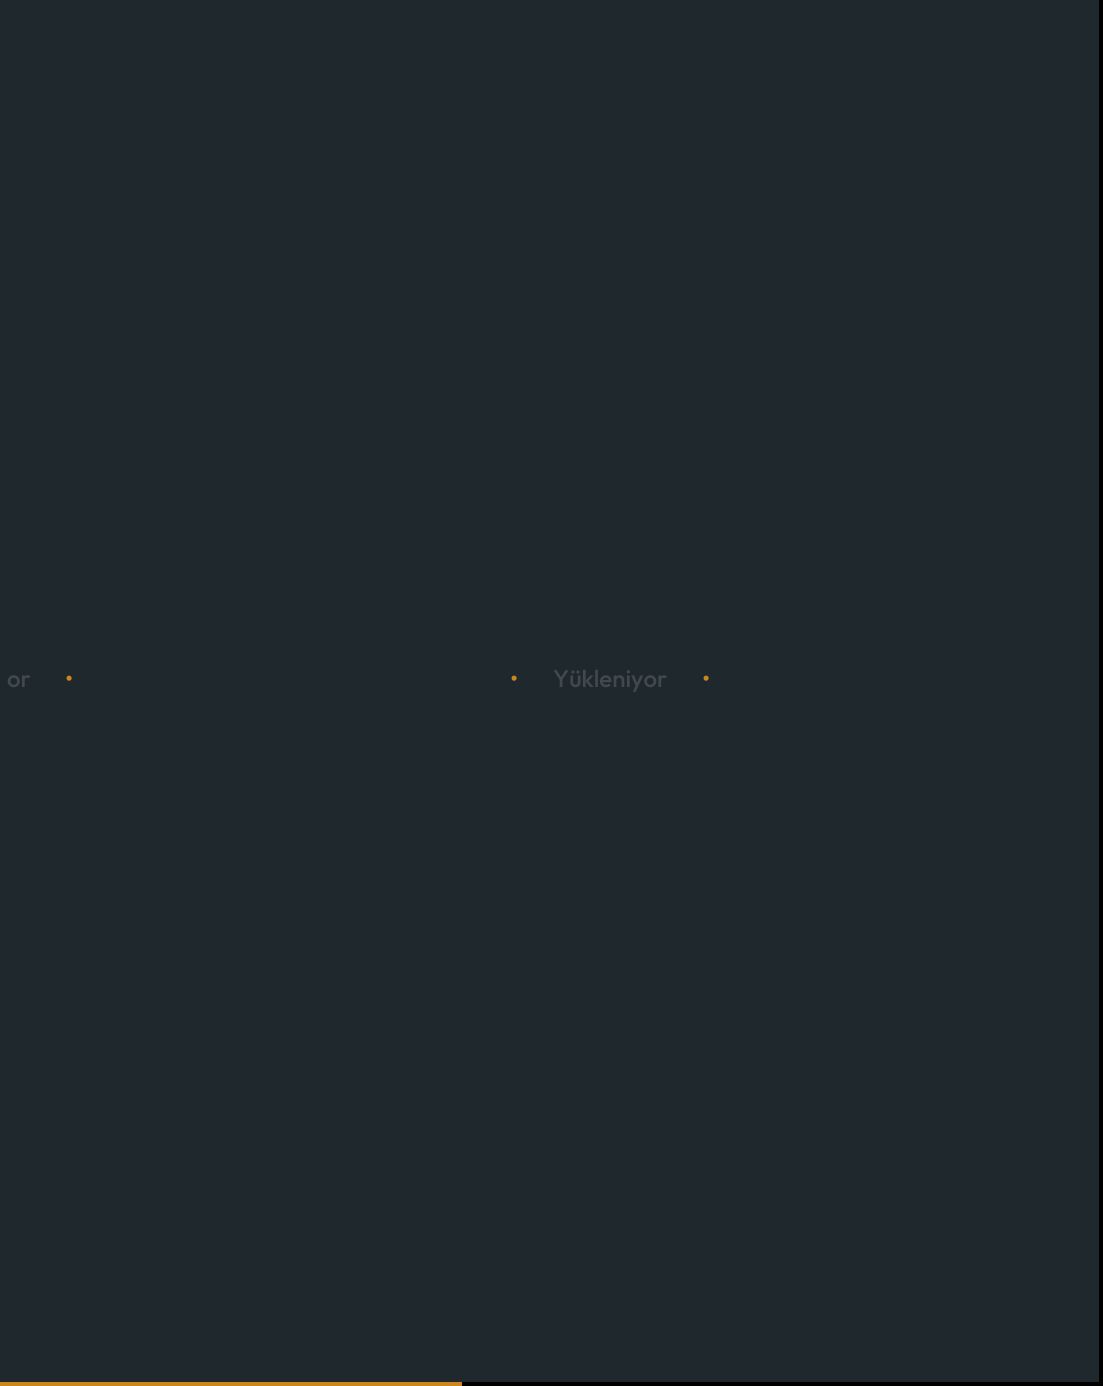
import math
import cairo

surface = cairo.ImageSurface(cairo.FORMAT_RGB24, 1103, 1386)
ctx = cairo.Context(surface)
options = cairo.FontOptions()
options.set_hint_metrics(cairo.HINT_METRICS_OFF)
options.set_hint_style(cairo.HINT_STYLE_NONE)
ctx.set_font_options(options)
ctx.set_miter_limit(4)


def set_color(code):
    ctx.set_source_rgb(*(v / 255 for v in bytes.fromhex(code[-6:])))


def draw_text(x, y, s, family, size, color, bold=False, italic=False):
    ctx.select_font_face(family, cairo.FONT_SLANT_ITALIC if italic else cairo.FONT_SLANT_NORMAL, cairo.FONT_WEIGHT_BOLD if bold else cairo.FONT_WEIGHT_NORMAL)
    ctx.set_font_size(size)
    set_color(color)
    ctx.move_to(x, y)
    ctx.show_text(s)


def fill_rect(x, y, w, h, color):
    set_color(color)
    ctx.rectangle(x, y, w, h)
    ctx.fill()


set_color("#1e282d")
ctx.paint()
draw_text(7, 687, "or", "Outfit Medium", 24, "#41494d")
draw_text(65, 687, "•", "Outfit Medium", 24, "#cc861e")
draw_text(510, 687, "•", "Outfit Medium", 24, "#cc861e")
draw_text(553, 687, "Yükleniyor", "Outfit Medium", 24, "#41494d")
draw_text(702, 687, "•", "Outfit Medium", 24, "#cc861e")
fill_rect(462, 1382, 641, 4, "#000000")
fill_rect(0, 1382, 462, 4, "#cc861e")
fill_rect(1099, 0, 4, 1386, "#000000")
surface.write_to_png("output.png")
